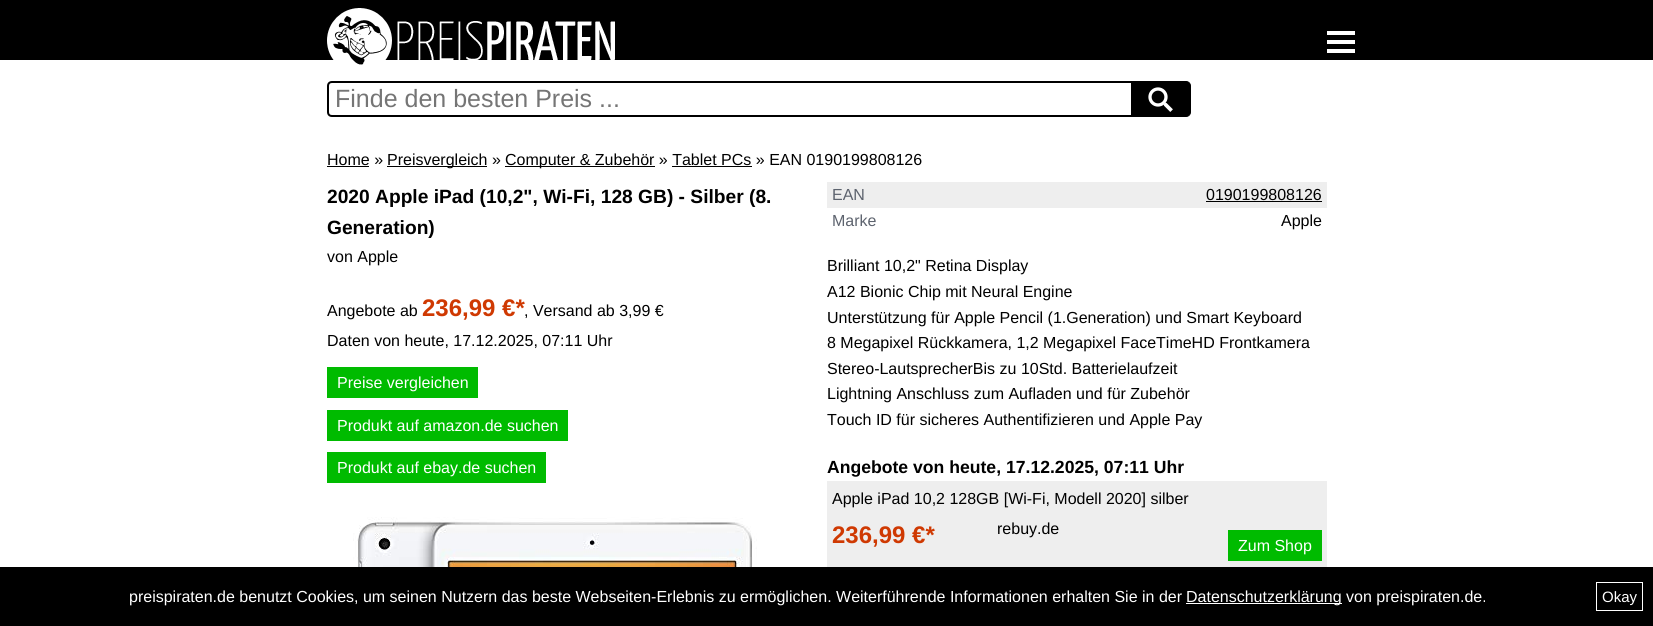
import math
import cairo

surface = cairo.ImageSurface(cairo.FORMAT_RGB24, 1653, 626)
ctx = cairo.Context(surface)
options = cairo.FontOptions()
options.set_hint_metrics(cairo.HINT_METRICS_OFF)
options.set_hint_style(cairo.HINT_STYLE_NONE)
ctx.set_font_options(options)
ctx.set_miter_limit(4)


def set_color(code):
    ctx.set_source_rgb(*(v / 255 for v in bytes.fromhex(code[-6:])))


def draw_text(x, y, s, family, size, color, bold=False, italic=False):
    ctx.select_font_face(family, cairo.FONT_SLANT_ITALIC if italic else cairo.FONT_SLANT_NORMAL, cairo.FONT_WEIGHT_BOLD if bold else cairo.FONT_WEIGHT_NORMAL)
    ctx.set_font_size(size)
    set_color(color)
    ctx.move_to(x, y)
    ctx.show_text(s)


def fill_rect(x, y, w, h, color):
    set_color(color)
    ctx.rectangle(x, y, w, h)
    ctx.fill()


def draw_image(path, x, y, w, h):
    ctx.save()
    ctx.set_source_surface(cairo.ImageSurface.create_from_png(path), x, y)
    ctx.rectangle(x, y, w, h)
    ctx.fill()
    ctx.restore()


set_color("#ffffff")
ctx.paint()
fill_rect(0, 0, 1653, 60, "#000000")
fill_rect(1327, 49, 28, 4, "#ffffff")
fill_rect(1327, 31, 28, 4, "#ffffff")
fill_rect(1327, 40, 28, 4, "#ffffff")
draw_image("assets/img1.png", 327, 8, 288, 57)
set_color("#000000")
ctx.set_fill_rule(cairo.FILL_RULE_EVEN_ODD)
ctx.new_path()
ctx.move_to(332, 81)
ctx.line_to(1131, 81)
ctx.line_to(1131, 117)
ctx.line_to(332, 117)
ctx.curve_to(329, 117, 327, 115, 327, 112)
ctx.line_to(327, 86)
ctx.curve_to(327, 83, 329, 81, 332, 81)
ctx.close_path()
ctx.move_to(332, 83)
ctx.line_to(1131, 83)
ctx.line_to(1131, 115)
ctx.line_to(332, 115)
ctx.curve_to(330, 115, 329, 114, 329, 112)
ctx.line_to(329, 86)
ctx.curve_to(329, 84, 330, 83, 332, 83)
ctx.close_path()
ctx.fill()
draw_text(335, 107, "Finde den besten Preis ...", "Liberation Sans", 25, "#757575")
set_color("#000000")
ctx.new_path()
ctx.move_to(1131.5, 81.5)
ctx.line_to(1186, 81.5)
ctx.curve_to(1188.5, 81.5, 1190.5, 83.5, 1190.5, 86)
ctx.line_to(1190.5, 112)
ctx.curve_to(1190.5, 114.5, 1188.5, 116.5, 1186, 116.5)
ctx.line_to(1131.5, 116.5)
ctx.close_path()
ctx.fill_preserve()
ctx.set_line_width(1)
ctx.stroke()
draw_image("assets/img2.png", 1148, 87, 25, 25)
draw_text(327, 165, "Home »", "Liberation Sans", 16, "#000000")
fill_rect(327, 166, 42, 1, "#000000")
fill_rect(387, 166, 100, 1, "#000000")
draw_text(387, 165, "Preisvergleich »", "Liberation Sans", 16, "#000000")
fill_rect(505, 166, 150, 1, "#000000")
draw_text(505, 165, "Computer & Zubehör » Tablet PCs » EAN 0190199808126", "Liberation Sans", 16, "#000000")
fill_rect(672, 166, 80, 1, "#000000")
draw_text(327, 203, "2020 Apple iPad (10,2\", Wi-Fi, 128 GB) - Silber (8.", "Liberation Sans", 19.2, "#000000", bold=True)
draw_text(327, 234, "Generation)", "Liberation Sans", 19.2, "#000000", bold=True)
draw_text(327, 262, "von Apple", "Liberation Sans", 16, "#000000")
draw_text(327, 316, "Angebote ab", "Liberation Sans", 16, "#000000")
draw_text(422, 316, "236,99 €*", "Liberation Sans", 24, "#cf3902", bold=True)
draw_text(524, 316, ", Versand ab 3,99 €", "Liberation Sans", 16, "#000000")
draw_text(327, 346, "Daten von heute, 17.12.2025, 07:11 Uhr", "Liberation Sans", 16, "#000000")
fill_rect(327, 367, 151, 31, "#00bb00")
draw_text(337, 388, "Preise vergleichen", "Liberation Sans", 16, "#ffffff")
fill_rect(327, 410, 241, 31, "#00bb00")
draw_text(337, 431, "Produkt auf amazon.de suchen", "Liberation Sans", 16, "#ffffff")
fill_rect(327, 452, 219, 31, "#00bb00")
draw_text(337, 473, "Produkt auf ebay.de suchen", "Liberation Sans", 16, "#ffffff")
draw_image("assets/img3.png", 353, 517, 404, 50)
fill_rect(827, 182, 500, 26, "#eeeeee")
draw_text(832, 200, "EAN", "Liberation Sans", 16, "#5d636e")
draw_text(1206, 200, "0190199808126", "Liberation Sans", 16, "#000000")
fill_rect(1206, 201, 116, 1, "#000000")
draw_text(832, 226, "Marke", "Liberation Sans", 16, "#5d636e")
draw_text(1281, 226, "Apple", "Liberation Sans", 16, "#000000")
draw_text(827, 271, "Brilliant 10,2\" Retina Display", "Liberation Sans", 16, "#000000")
draw_text(827, 297, "A12 Bionic Chip mit Neural Engine", "Liberation Sans", 16, "#000000")
draw_text(827, 323, "Unterstützung für Apple Pencil (1.Generation) und Smart Keyboard", "Liberation Sans", 16, "#000000")
draw_text(827, 348, "8 Megapixel Rückkamera, 1,2 Megapixel FaceTimeHD Frontkamera", "Liberation Sans", 16, "#000000")
draw_text(827, 374, "Stereo-LautsprecherBis zu 10Std. Batterielaufzeit", "Liberation Sans", 16, "#000000")
draw_text(827, 399, "Lightning Anschluss zum Aufladen und für Zubehör", "Liberation Sans", 16, "#000000")
draw_text(827, 425, "Touch ID für sicheres Authentifizieren und Apple Pay", "Liberation Sans", 16, "#000000")
draw_text(827, 473, "Angebote von heute, 17.12.2025, 07:11 Uhr", "Liberation Sans", 17.6, "#000000", bold=True)
fill_rect(827, 481, 500, 86, "#eeeeee")
draw_text(832, 504, "Apple iPad 10,2 128GB [Wi-Fi, Modell 2020] silber", "Liberation Sans", 16, "#000000")
draw_text(832, 543, "236,99 €*", "Liberation Sans", 24, "#cf3902", bold=True)
draw_text(997, 534, "rebuy.de", "Liberation Sans", 16, "#000000")
fill_rect(1228, 530, 94, 31, "#00bb00")
draw_text(1238, 551, "Zum Shop", "Liberation Sans", 16, "#ffffff")
fill_rect(0, 567, 1653, 59, "#000000")
draw_text(129, 602, "preispiraten.de benutzt Cookies, um seinen Nutzern das beste Webseiten-Erlebnis zu ermöglichen. Weiterführende Informationen erhalten Sie in der", "Liberation Sans", 16, "#ffffff")
fill_rect(1186, 603, 156, 1, "#ffffff")
draw_text(1186, 602, "Datenschutzerklärung von preispiraten.de.", "Liberation Sans", 16, "#ffffff")
ctx.rectangle(1596.5, 582.5, 46, 28)
ctx.stroke()
draw_text(1602, 602, "Okay", "Liberation Sans", 15, "#ffffff")
surface.write_to_png("output.png")
